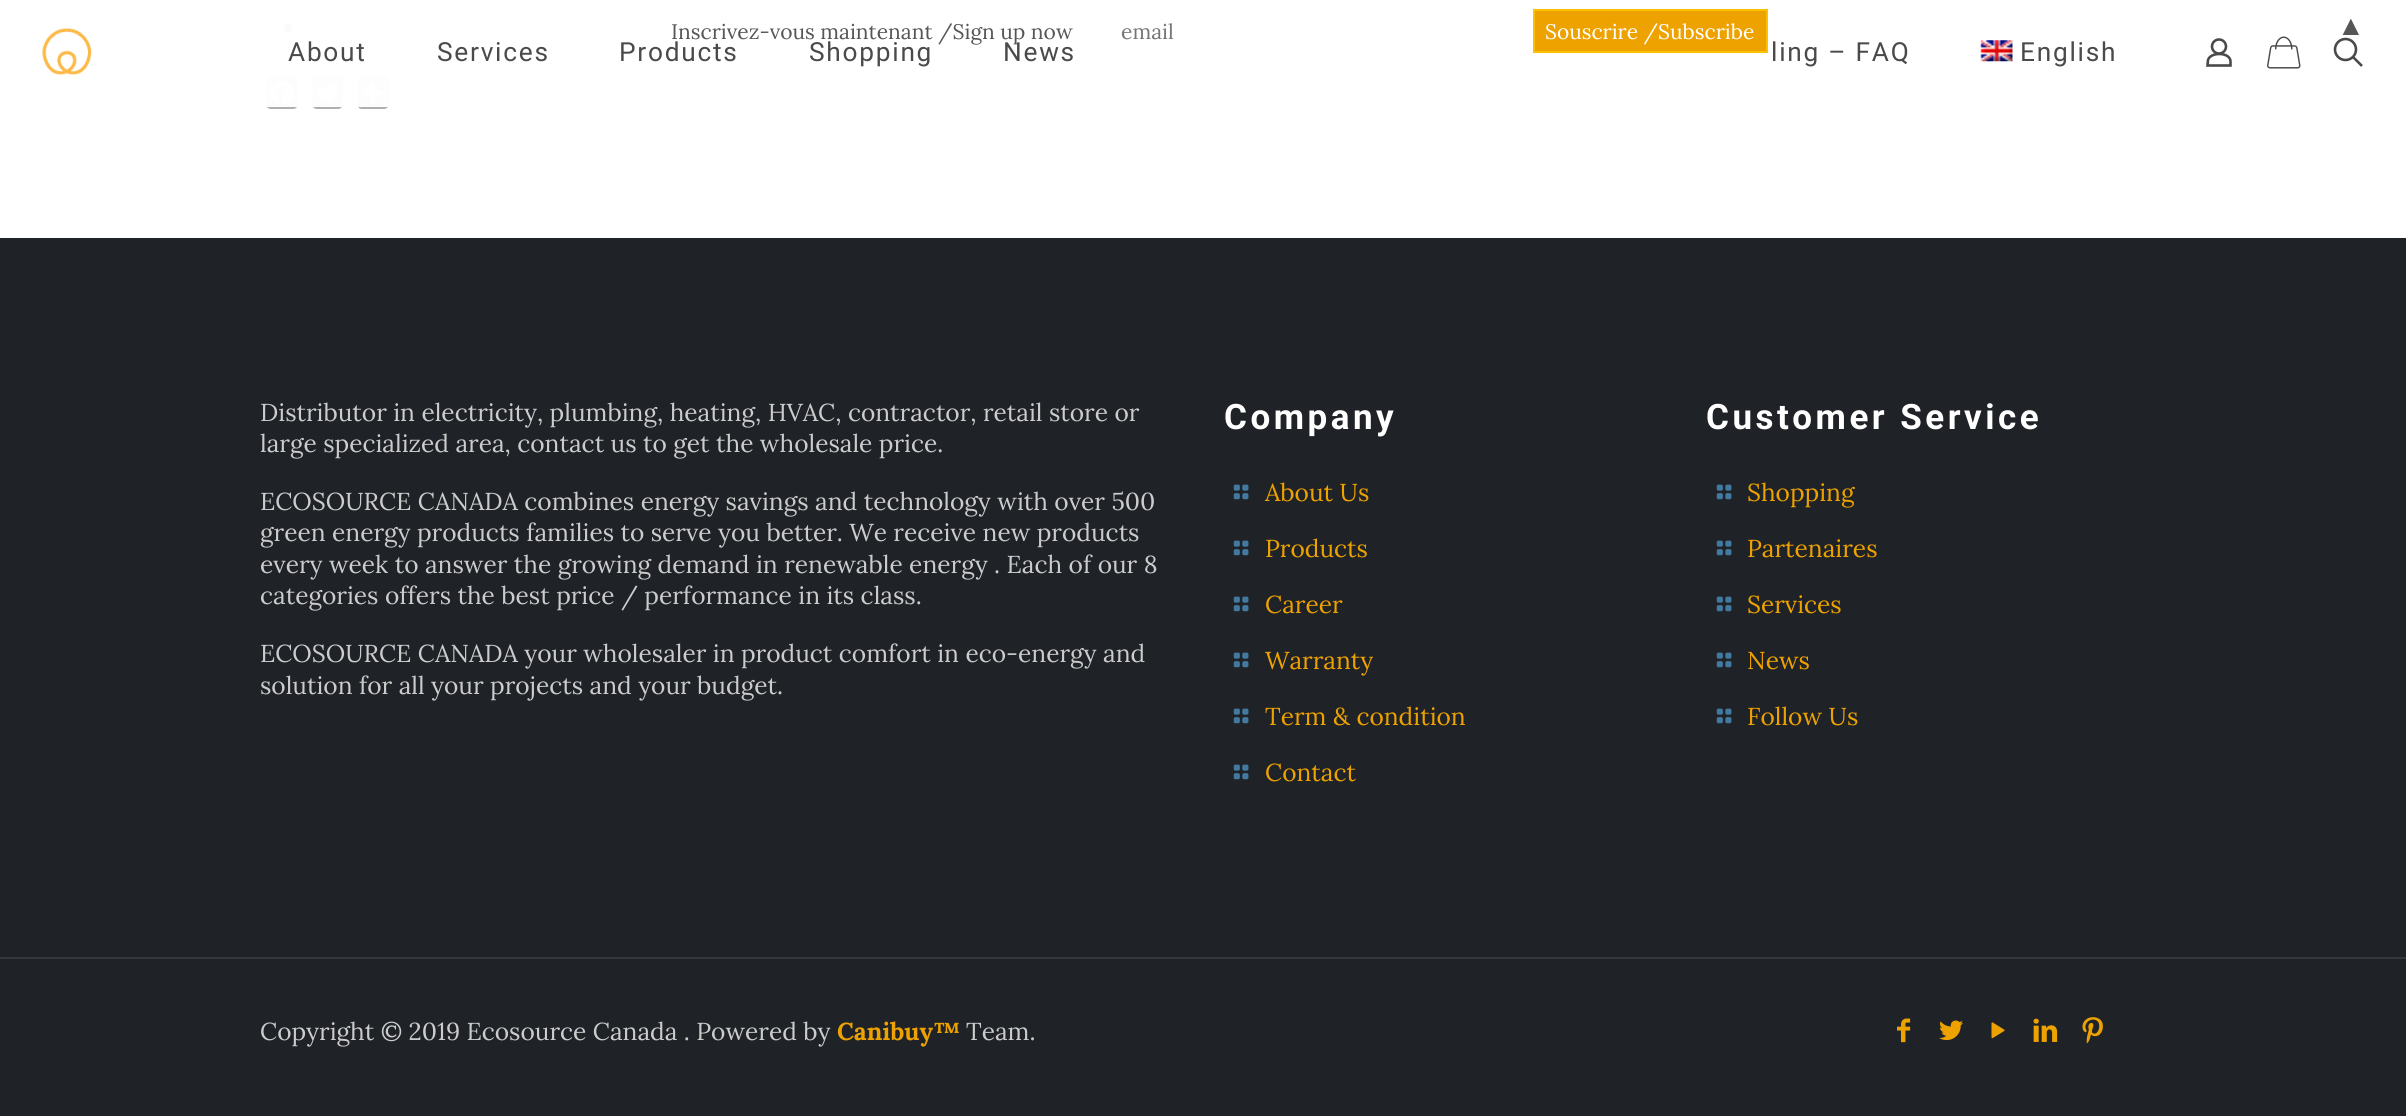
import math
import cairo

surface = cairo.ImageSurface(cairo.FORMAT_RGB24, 2406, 1116)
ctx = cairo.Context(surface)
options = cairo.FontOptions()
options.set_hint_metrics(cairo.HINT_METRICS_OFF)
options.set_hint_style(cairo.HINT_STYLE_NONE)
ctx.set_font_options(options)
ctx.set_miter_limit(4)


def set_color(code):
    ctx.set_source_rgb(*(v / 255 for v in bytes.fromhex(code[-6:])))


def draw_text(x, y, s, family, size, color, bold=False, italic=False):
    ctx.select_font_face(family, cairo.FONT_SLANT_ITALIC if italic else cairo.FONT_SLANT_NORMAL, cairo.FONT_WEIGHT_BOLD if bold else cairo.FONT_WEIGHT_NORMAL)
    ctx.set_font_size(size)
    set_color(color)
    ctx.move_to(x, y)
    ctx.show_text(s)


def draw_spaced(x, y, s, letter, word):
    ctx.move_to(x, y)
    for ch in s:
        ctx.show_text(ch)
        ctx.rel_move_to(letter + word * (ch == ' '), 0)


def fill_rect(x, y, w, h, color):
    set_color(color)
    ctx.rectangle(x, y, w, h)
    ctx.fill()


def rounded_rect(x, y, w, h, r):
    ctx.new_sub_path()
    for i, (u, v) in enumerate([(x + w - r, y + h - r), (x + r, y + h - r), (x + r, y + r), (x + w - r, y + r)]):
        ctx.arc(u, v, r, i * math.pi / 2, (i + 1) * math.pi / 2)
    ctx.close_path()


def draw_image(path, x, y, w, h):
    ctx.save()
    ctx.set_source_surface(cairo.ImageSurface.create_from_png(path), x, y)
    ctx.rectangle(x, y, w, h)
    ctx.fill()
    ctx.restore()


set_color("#ffffff")
ctx.paint()
draw_text(671, 39, "Inscrivez-vous maintenant /Sign up now", "Lora", 21, "#565656")
draw_text(1121, 39, "email", "Lora", 21, "#757575")
set_color("#eea200")
ctx.rectangle(1534, 10, 233, 42)
ctx.fill_preserve()
set_color("#fcc100")
ctx.stroke()
draw_text(1545, 39, "Souscrire /Subscribe", "Lora", 21, "#ffffff")
draw_text(2337, 35, "▲", "Liberation Sans", 28, "#565656")
set_color("#737e86")
rounded_rect(284, 23, 8, 9, 4)
ctx.fill()
set_color("#afafaf")
rounded_rect(266, 77, 32, 32, 5)
ctx.fill()
draw_image("assets/img1.png", 270, 81, 24, 24)
rounded_rect(312, 77, 31, 32, 5)
ctx.fill()
draw_image("assets/img2.png", 315, 83, 24, 20)
rounded_rect(357, 77, 32, 32, 5)
ctx.fill()
fill_rect(371, 84, 4, 18, "#ffffff")
fill_rect(364, 91, 18, 4, "#ffffff")
ctx.set_source_rgba(1, 1, 1, 0.97)
ctx.rectangle(266, 23, 123, 84)
ctx.fill()
draw_image("assets/img3.png", 42, 28, 50, 47)
ctx.select_font_face("Roboto")
ctx.set_font_size(26.25)
set_color("#4a4a4a")
draw_spaced(288, 61, "About", 1.75, 0)
draw_spaced(437, 61, "Services", 1.75, 0)
draw_spaced(619, 61, "Products", 1.75, 0)
draw_spaced(809, 61, "Shopping", 1.75, 0)
draw_spaced(1003, 61, "News", 1.75, 0)
draw_spaced(1771, 61, "ling – FAQ", 1.75, 0)
draw_image("assets/img4.png", 1980, 40, 33, 22)
draw_spaced(2020, 61, "English", 1.75, 0)
ctx.new_path()
ctx.arc(2219, 46.5, 7, 0, 2 * math.pi)
ctx.set_line_width(2.6)
ctx.stroke()
ctx.new_path()
ctx.move_to(2230.5, 61.5)
ctx.line_to(2230.5, 65.5)
ctx.line_to(2207.5, 65.5)
ctx.line_to(2208, 60)
ctx.curve_to(2210.5, 51.5, 2230.5, 52, 2230.5, 61.5)
ctx.close_path()
ctx.stroke()
draw_image("assets/img5.png", 2267, 36, 34, 33)
ctx.arc(2345.5, 49.5, 10.5, 0, 2 * math.pi)
ctx.stroke()
ctx.new_path()
ctx.move_to(2353, 57)
ctx.line_to(2362, 66)
ctx.stroke()
fill_rect(0, 238, 2406, 878, "#1f2227")
draw_text(260, 421, "Distributor in electricity, plumbing, heating, HVAC, contractor, retail store or", "Lora", 24.5, "#cccccc")
draw_text(260, 452, "large specialized area, contact us to get the wholesale price.", "Lora", 24.5, "#cccccc")
draw_text(260, 510, "ECOSOURCE CANADA combines energy savings and technology with over 500", "Lora", 24.5, "#cccccc")
draw_text(260, 541, "green energy products families to serve you better. We receive new products", "Lora", 24.5, "#cccccc")
draw_text(260, 573, "every week to answer the growing demand in renewable energy . Each of our 8", "Lora", 24.5, "#cccccc")
draw_text(260, 604, "categories offers the best price / performance in its class.", "Lora", 24.5, "#cccccc")
draw_text(260, 662, "ECOSOURCE CANADA your wholesaler in product comfort in eco-energy and", "Lora", 24.5, "#cccccc")
draw_text(260, 694, "solution for all your projects and your budget.", "Lora", 24.5, "#cccccc")
ctx.select_font_face("Roboto", cairo.FONT_SLANT_NORMAL, cairo.FONT_WEIGHT_BOLD)
ctx.set_font_size(35)
set_color("#ffffff")
draw_spaced(1224, 429, "Company", 3.5, 0)
draw_image("assets/img6.png", 1233, 484, 16, 16)
draw_text(1265, 501, "About Us", "Lora", 24.5, "#eea200")
draw_image("assets/img6.png", 1233, 540, 16, 16)
draw_text(1265, 557, "Products", "Lora", 24.5, "#eea200")
draw_image("assets/img6.png", 1233, 596, 16, 16)
draw_text(1265, 613, "Career", "Lora", 24.5, "#eea200")
draw_image("assets/img6.png", 1233, 652, 16, 16)
draw_text(1265, 669, "Warranty", "Lora", 24.5, "#eea200")
draw_image("assets/img6.png", 1233, 708, 16, 16)
draw_text(1265, 725, "Term & condition", "Lora", 24.5, "#eea200")
draw_image("assets/img6.png", 1233, 764, 16, 16)
draw_text(1265, 781, "Contact", "Lora", 24.5, "#eea200")
ctx.select_font_face("Roboto", cairo.FONT_SLANT_NORMAL, cairo.FONT_WEIGHT_BOLD)
ctx.set_font_size(35)
set_color("#ffffff")
draw_spaced(1706, 429, "Customer Service", 3.5, 0)
draw_image("assets/img6.png", 1716, 484, 16, 16)
draw_text(1747, 501, "Shopping", "Lora", 24.5, "#eea200")
draw_image("assets/img6.png", 1716, 540, 16, 16)
draw_text(1747, 557, "Partenaires", "Lora", 24.5, "#eea200")
draw_image("assets/img6.png", 1716, 596, 16, 16)
draw_text(1747, 613, "Services", "Lora", 24.5, "#eea200")
draw_image("assets/img6.png", 1716, 652, 16, 16)
draw_text(1747, 669, "News", "Lora", 24.5, "#eea200")
draw_image("assets/img6.png", 1716, 708, 16, 16)
draw_text(1747, 725, "Follow Us", "Lora", 24.5, "#eea200")
fill_rect(0, 957, 2406, 2, "#35383d")
draw_text(260, 1040, "Copyright © 2019 Ecosource Canada . Powered by", "Lora", 24.5, "#cccccc")
draw_text(837, 1040, "Canibuy™", "Lora", 24.5, "#eea200", bold=True)
draw_text(966, 1040, "Team.", "Lora", 24.5, "#cccccc")
draw_image("assets/img7.png", 1897, 1018, 14, 25)
draw_image("assets/img8.png", 1939, 1020, 24, 21)
draw_image("assets/img9.png", 1991, 1022, 14, 17)
draw_image("assets/img10.png", 2033, 1018, 25, 24)
draw_image("assets/img11.png", 2082, 1017, 21, 27)
surface.write_to_png("output.png")
